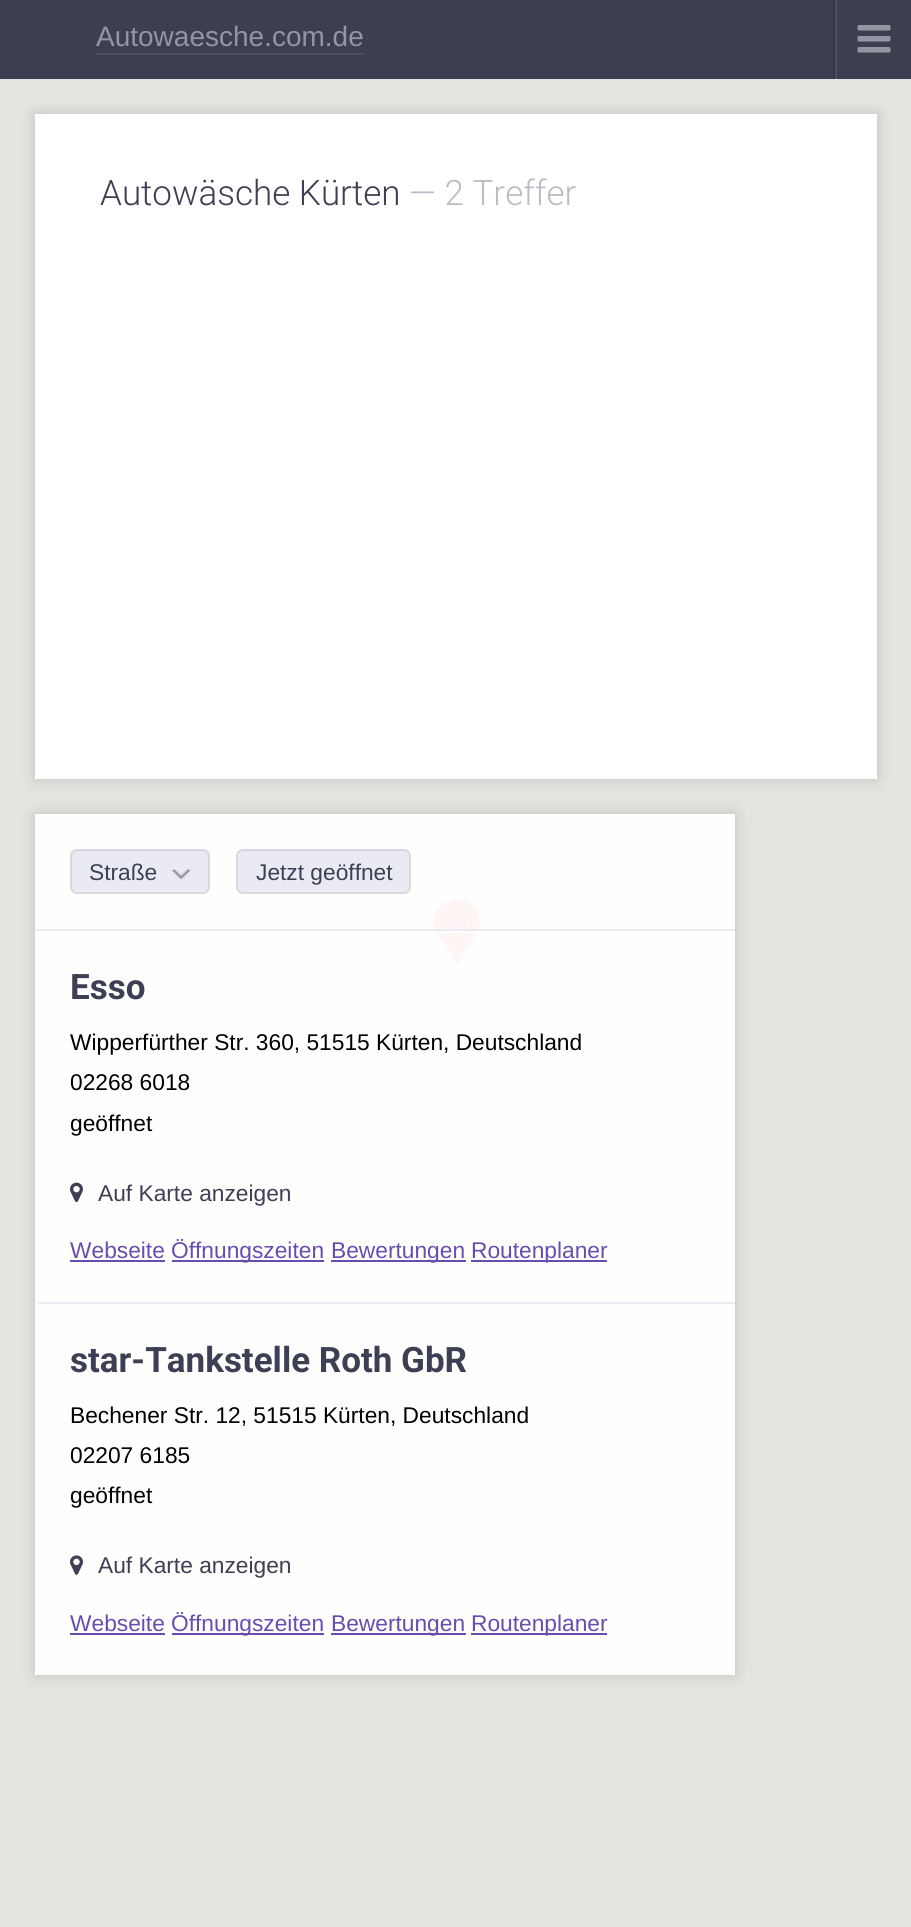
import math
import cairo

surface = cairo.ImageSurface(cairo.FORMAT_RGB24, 911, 1927)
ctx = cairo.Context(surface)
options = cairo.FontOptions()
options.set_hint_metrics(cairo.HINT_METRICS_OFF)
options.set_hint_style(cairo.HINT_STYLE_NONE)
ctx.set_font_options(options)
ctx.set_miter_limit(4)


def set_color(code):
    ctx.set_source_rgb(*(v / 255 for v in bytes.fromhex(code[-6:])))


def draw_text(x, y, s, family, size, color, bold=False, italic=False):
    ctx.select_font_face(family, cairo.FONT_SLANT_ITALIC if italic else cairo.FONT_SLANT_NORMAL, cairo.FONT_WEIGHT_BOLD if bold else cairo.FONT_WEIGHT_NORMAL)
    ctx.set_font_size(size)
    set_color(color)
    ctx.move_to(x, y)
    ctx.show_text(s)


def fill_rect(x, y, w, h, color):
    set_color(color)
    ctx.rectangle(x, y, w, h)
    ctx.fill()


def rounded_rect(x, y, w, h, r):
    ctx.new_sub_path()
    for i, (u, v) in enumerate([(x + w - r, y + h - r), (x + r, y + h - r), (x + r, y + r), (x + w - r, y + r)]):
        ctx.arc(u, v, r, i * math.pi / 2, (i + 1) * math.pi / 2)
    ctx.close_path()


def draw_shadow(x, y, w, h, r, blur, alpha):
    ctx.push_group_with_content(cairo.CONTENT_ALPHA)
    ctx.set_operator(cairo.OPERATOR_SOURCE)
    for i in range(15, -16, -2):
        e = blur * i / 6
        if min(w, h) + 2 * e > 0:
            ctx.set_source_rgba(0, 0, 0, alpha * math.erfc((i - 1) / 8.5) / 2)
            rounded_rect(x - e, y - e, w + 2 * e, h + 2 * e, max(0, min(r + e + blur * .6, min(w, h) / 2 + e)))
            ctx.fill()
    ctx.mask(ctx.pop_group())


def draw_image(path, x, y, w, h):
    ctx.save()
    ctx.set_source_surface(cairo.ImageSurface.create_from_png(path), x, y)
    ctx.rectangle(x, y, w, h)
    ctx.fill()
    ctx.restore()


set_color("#e5e3df")
ctx.paint()
fill_rect(0, 0, 911, 79, "#3d3f51")
fill_rect(96, 53, 268, 2, "#4b4d5e")
draw_text(96, 46, "Autowaesche.com.de", "Liberation Sans", 28, "#9495a2")
fill_rect(835, 0, 2, 79, "#4d4e5f")
fill_rect(833, 0, 2, 79, "#343645")
draw_image("assets/img1.png", 857, 25, 34, 28)
set_color("#000000")
draw_shadow(35, 114, 842, 665, 0, 7, 0.15)
fill_rect(35, 114, 842, 665, "#ffffff")
draw_text(100, 205, "Autowäsche Kürten", "Roboto Light", 35, "#3d3f55")
draw_text(409, 205, "— 2 Treffer", "Roboto Light", 35, "#bbbcc4")
draw_image("assets/img5.png", 434, 899, 46, 66)
ctx.save()
ctx.set_fill_rule(cairo.FILL_RULE_EVEN_ODD)
ctx.new_path()
ctx.move_to(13, 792)
ctx.line_to(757, 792)
ctx.line_to(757, 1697)
ctx.line_to(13, 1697)
ctx.close_path()
ctx.move_to(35, 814)
ctx.line_to(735, 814)
ctx.line_to(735, 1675)
ctx.line_to(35, 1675)
ctx.close_path()
ctx.clip()
set_color("#000000")
draw_shadow(35, 814, 700, 861, 0, 7, 0.15)
ctx.restore()
ctx.set_source_rgba(1, 1, 1, 0.95)
ctx.rectangle(35, 814, 700, 861)
ctx.fill()
fill_rect(35, 929, 700, 2, "#eaebf2")
rounded_rect(71, 850, 138, 43, 6)
ctx.fill_preserve()
set_color("#d8d9e0")
ctx.stroke()
draw_text(89, 880, "Straße", "Liberation Sans", 22.75, "#3d3f55")
draw_image("assets/img2.png", 171, 869, 20, 10)
set_color("#eaebf2")
rounded_rect(237, 850, 173, 43, 6)
ctx.fill_preserve()
set_color("#d8d9e0")
ctx.stroke()
draw_text(256, 880, "Jetzt geöffnet", "Liberation Sans", 22.75, "#3d3f55")
fill_rect(435, 931, 44, 2, "#ffffff")
draw_text(70, 999, "Esso", "Roboto", 35, "#3d3f55", bold=True)
draw_text(70, 1050, "Wipperfürther Str. 360, 51515 Kürten, Deutschland", "Liberation Sans", 22.75, "#000000")
draw_text(70, 1090, "02268 6018", "Liberation Sans", 22.75, "#000000")
draw_text(70, 1131, "geöffnet", "Liberation Sans", 22.75, "#000000")
draw_image("assets/img3.png", 70, 1182, 13, 21)
draw_text(98, 1201, "Auf Karte anzeigen", "Liberation Sans", 22.75, "#3d3f55")
draw_text(70, 1258, "Webseite", "Liberation Sans", 22.75, "#694caf")
fill_rect(70, 1260, 95, 2, "#694caf")
fill_rect(172, 1260, 152, 2, "#694caf")
draw_text(171, 1258, "Öffnungszeiten", "Liberation Sans", 22.75, "#694caf")
fill_rect(331, 1260, 135, 2, "#694caf")
draw_text(331, 1258, "Bewertungen", "Liberation Sans", 22.75, "#694caf")
fill_rect(471, 1260, 136, 2, "#694caf")
draw_text(471, 1258, "Routenplaner", "Liberation Sans", 22.75, "#694caf")
set_color("#eaebf2")
ctx.new_path()
ctx.move_to(35, 1302)
ctx.line_to(735, 1302)
ctx.line_to(735, 1304)
ctx.line_to(40, 1304)
ctx.close_path()
ctx.fill()
draw_text(70, 1372, "star-Tankstelle Roth GbR", "Roboto", 35, "#3d3f55", bold=True)
draw_text(70, 1423, "Bechener Str. 12, 51515 Kürten, Deutschland", "Liberation Sans", 22.75, "#000000")
draw_text(70, 1463, "02207 6185", "Liberation Sans", 22.75, "#000000")
draw_text(70, 1503, "geöffnet", "Liberation Sans", 22.75, "#000000")
draw_image("assets/img4.png", 70, 1555, 13, 20)
draw_text(98, 1573, "Auf Karte anzeigen", "Liberation Sans", 22.75, "#3d3f55")
draw_text(70, 1631, "Webseite", "Liberation Sans", 22.75, "#694caf")
fill_rect(70, 1633, 95, 2, "#694caf")
fill_rect(172, 1633, 152, 2, "#694caf")
draw_text(171, 1631, "Öffnungszeiten", "Liberation Sans", 22.75, "#694caf")
fill_rect(331, 1633, 135, 2, "#694caf")
draw_text(331, 1631, "Bewertungen", "Liberation Sans", 22.75, "#694caf")
fill_rect(471, 1633, 136, 2, "#694caf")
draw_text(471, 1631, "Routenplaner", "Liberation Sans", 22.75, "#694caf")
surface.write_to_png("output.png")
